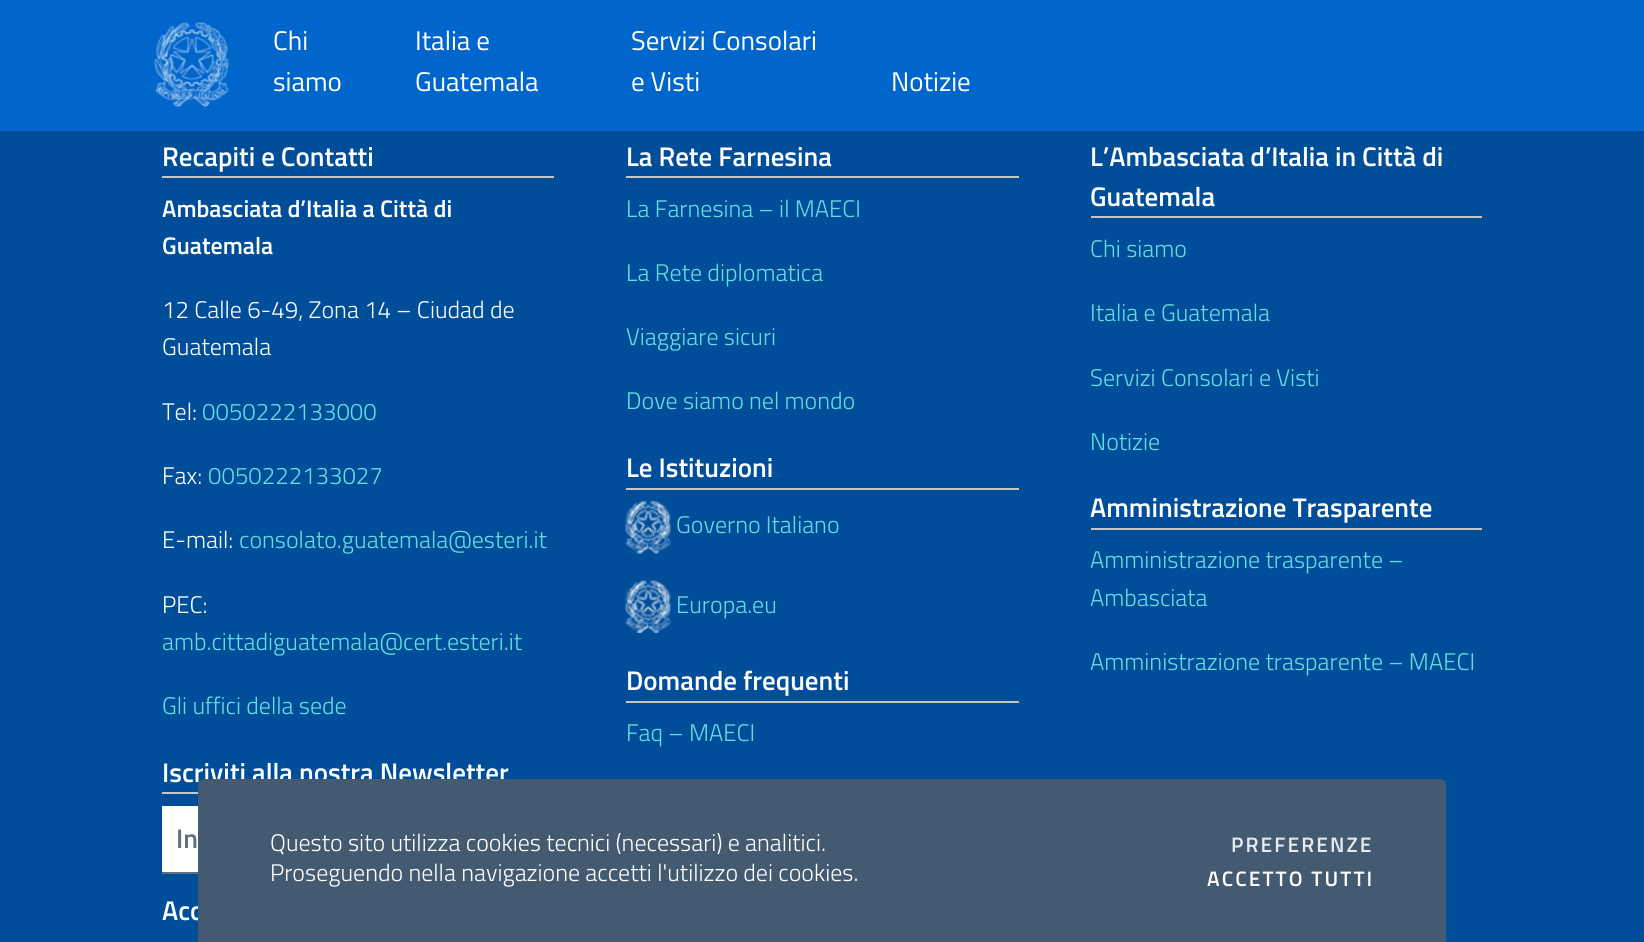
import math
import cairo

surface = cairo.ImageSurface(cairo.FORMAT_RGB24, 1644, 942)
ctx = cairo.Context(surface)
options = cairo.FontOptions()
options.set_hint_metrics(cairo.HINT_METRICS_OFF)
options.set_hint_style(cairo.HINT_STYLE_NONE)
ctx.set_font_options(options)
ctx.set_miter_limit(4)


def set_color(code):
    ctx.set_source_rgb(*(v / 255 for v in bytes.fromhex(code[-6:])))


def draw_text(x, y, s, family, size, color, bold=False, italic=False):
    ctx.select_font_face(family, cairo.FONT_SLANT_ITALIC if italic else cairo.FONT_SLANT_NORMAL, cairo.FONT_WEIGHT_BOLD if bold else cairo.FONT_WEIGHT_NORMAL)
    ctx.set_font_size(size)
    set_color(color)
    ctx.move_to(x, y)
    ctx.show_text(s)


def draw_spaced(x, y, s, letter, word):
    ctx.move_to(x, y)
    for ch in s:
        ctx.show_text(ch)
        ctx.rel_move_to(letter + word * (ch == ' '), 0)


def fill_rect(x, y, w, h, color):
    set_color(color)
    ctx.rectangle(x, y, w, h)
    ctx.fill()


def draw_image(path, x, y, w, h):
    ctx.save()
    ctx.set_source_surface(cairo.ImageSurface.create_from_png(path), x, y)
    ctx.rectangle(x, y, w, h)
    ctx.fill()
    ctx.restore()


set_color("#004d99")
ctx.paint()
fill_rect(0, 0, 1644, 131, "#0066cc")
draw_image("assets/img1.png", 154, 22, 75, 86)
draw_text(273, 50, "Chi", "Titillium Web", 27, "#ffffff")
draw_text(273, 91, "siamo", "Titillium Web", 27, "#ffffff")
draw_text(415, 50, "Italia e", "Titillium Web", 27, "#ffffff")
draw_text(415, 91, "Guatemala", "Titillium Web", 27, "#ffffff")
draw_text(631, 50, "Servizi Consolari", "Titillium Web", 27, "#ffffff")
draw_text(631, 91, "e Visti", "Titillium Web", 27, "#ffffff")
draw_text(891, 91, "Notizie", "Titillium Web", 27, "#ffffff")
fill_rect(162, 176, 392, 2, "#c5c7c9")
draw_text(162, 166, "Recapiti e Contatti", "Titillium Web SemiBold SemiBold", 27, "#ffffff")
draw_text(162, 217, "Ambasciata d’Italia a Città di", "Titillium Web SemiBold SemiBold", 24, "#ffffff")
draw_text(162, 254, "Guatemala", "Titillium Web SemiBold SemiBold", 24, "#ffffff")
draw_text(162, 318, "12 Calle 6-49, Zona 14 – Ciudad de", "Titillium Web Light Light", 24, "#ffffff")
draw_text(162, 355, "Guatemala", "Titillium Web Light Light", 24, "#ffffff")
draw_text(162, 420, "Tel:", "Titillium Web Light Light", 24, "#ffffff")
draw_text(202, 420, "0050222133000", "Titillium Web Light Light", 24, "#65dde0")
draw_text(162, 484, "Fax:", "Titillium Web Light Light", 24, "#ffffff")
draw_text(208, 484, "0050222133027", "Titillium Web Light Light", 24, "#65dde0")
draw_text(162, 548, "E-mail:", "Titillium Web Light Light", 24, "#ffffff")
draw_text(239, 548, "consolato.guatemala@esteri.it", "Titillium Web Light Light", 24, "#65dde0")
draw_text(162, 613, "PEC:", "Titillium Web Light Light", 24, "#ffffff")
draw_text(162, 650, "amb.cittadiguatemala@cert.esteri.it", "Titillium Web Light Light", 24, "#65dde0")
draw_text(162, 714, "Gli uffici della sede", "Titillium Web Light Light", 24, "#65dde0")
fill_rect(162, 792, 36, 2, "#c5c7c9")
draw_text(162, 782, "Iscriviti alla nostra Newsletter", "Titillium Web SemiBold SemiBold", 27, "#ffffff")
fill_rect(162, 806, 36, 66, "#ffffff")
fill_rect(162, 872, 36, 2, "#5d7083")
draw_text(176, 848, "In", "Titillium Web SemiBold SemiBold", 27, "#5d7083")
draw_text(162, 920, "Acc", "Titillium Web SemiBold SemiBold", 27, "#ffffff")
fill_rect(626, 176, 393, 2, "#c5c7c9")
draw_text(626, 166, "La Rete Farnesina", "Titillium Web SemiBold SemiBold", 27, "#ffffff")
draw_text(626, 217, "La Farnesina – il MAECI", "Titillium Web Light Light", 24, "#65dde0")
draw_text(626, 281, "La Rete diplomatica", "Titillium Web Light Light", 24, "#65dde0")
draw_text(626, 345, "Viaggiare sicuri", "Titillium Web Light Light", 24, "#65dde0")
draw_text(626, 409, "Dove siamo nel mondo", "Titillium Web Light Light", 24, "#65dde0")
fill_rect(626, 488, 393, 2, "#c5c7c9")
draw_text(626, 477, "Le Istituzioni", "Titillium Web SemiBold SemiBold", 27, "#ffffff")
draw_image("assets/img2.png", 625, 501, 46, 53)
draw_text(676, 533, "Governo Italiano", "Titillium Web Light Light", 24, "#65dde0")
draw_image("assets/img3.png", 625, 580, 46, 53)
draw_text(676, 613, "Europa.eu", "Titillium Web Light Light", 24, "#65dde0")
fill_rect(626, 701, 393, 2, "#c5c7c9")
draw_text(626, 690, "Domande frequenti", "Titillium Web SemiBold SemiBold", 27, "#ffffff")
draw_text(626, 741, "Faq – MAECI", "Titillium Web Light Light", 24, "#65dde0")
fill_rect(1091, 216, 391, 2, "#c5c7c9")
draw_text(1090, 166, "L’Ambasciata d’Italia in Città di", "Titillium Web SemiBold SemiBold", 27, "#ffffff")
draw_text(1090, 206, "Guatemala", "Titillium Web SemiBold SemiBold", 27, "#ffffff")
draw_text(1090, 257, "Chi siamo", "Titillium Web Light Light", 24, "#65dde0")
draw_text(1090, 321, "Italia e Guatemala", "Titillium Web Light Light", 24, "#65dde0")
draw_text(1090, 386, "Servizi Consolari e Visti", "Titillium Web Light Light", 24, "#65dde0")
draw_text(1090, 450, "Notizie", "Titillium Web Light Light", 24, "#65dde0")
fill_rect(1091, 528, 391, 2, "#c5c7c9")
draw_text(1090, 517, "Amministrazione Trasparente", "Titillium Web SemiBold SemiBold", 27, "#ffffff")
draw_text(1090, 568, "Amministrazione trasparente –", "Titillium Web Light Light", 24, "#65dde0")
draw_text(1090, 606, "Ambasciata", "Titillium Web Light Light", 24, "#65dde0")
draw_text(1090, 670, "Amministrazione trasparente – MAECI", "Titillium Web Light Light", 24, "#65dde0")
set_color("#435a70")
ctx.new_path()
ctx.move_to(204, 779)
ctx.line_to(1440, 779)
ctx.curve_to(1443.5, 779, 1446, 781.5, 1446, 785)
ctx.line_to(1446, 942)
ctx.line_to(198, 942)
ctx.line_to(198, 785)
ctx.curve_to(198, 781.5, 200.5, 779, 204, 779)
ctx.close_path()
ctx.fill()
draw_text(270, 851, "Questo sito utilizza cookies tecnici (necessari) e analitici.", "Titillium Web Light Light", 24, "#ffffff")
draw_text(270, 881, "Proseguendo nella navigazione accetti l'utilizzo dei cookies.", "Titillium Web Light Light", 24, "#ffffff")
ctx.select_font_face("Titillium Web SemiBold SemiBold")
ctx.set_font_size(21)
set_color("#e6ecf2")
draw_spaced(1231, 852, "PREFERENZE", 2.1, 0)
set_color("#ffffff")
draw_spaced(1207, 886, "ACCETTO TUTTI", 2.1, 0)
surface.write_to_png("output.png")
